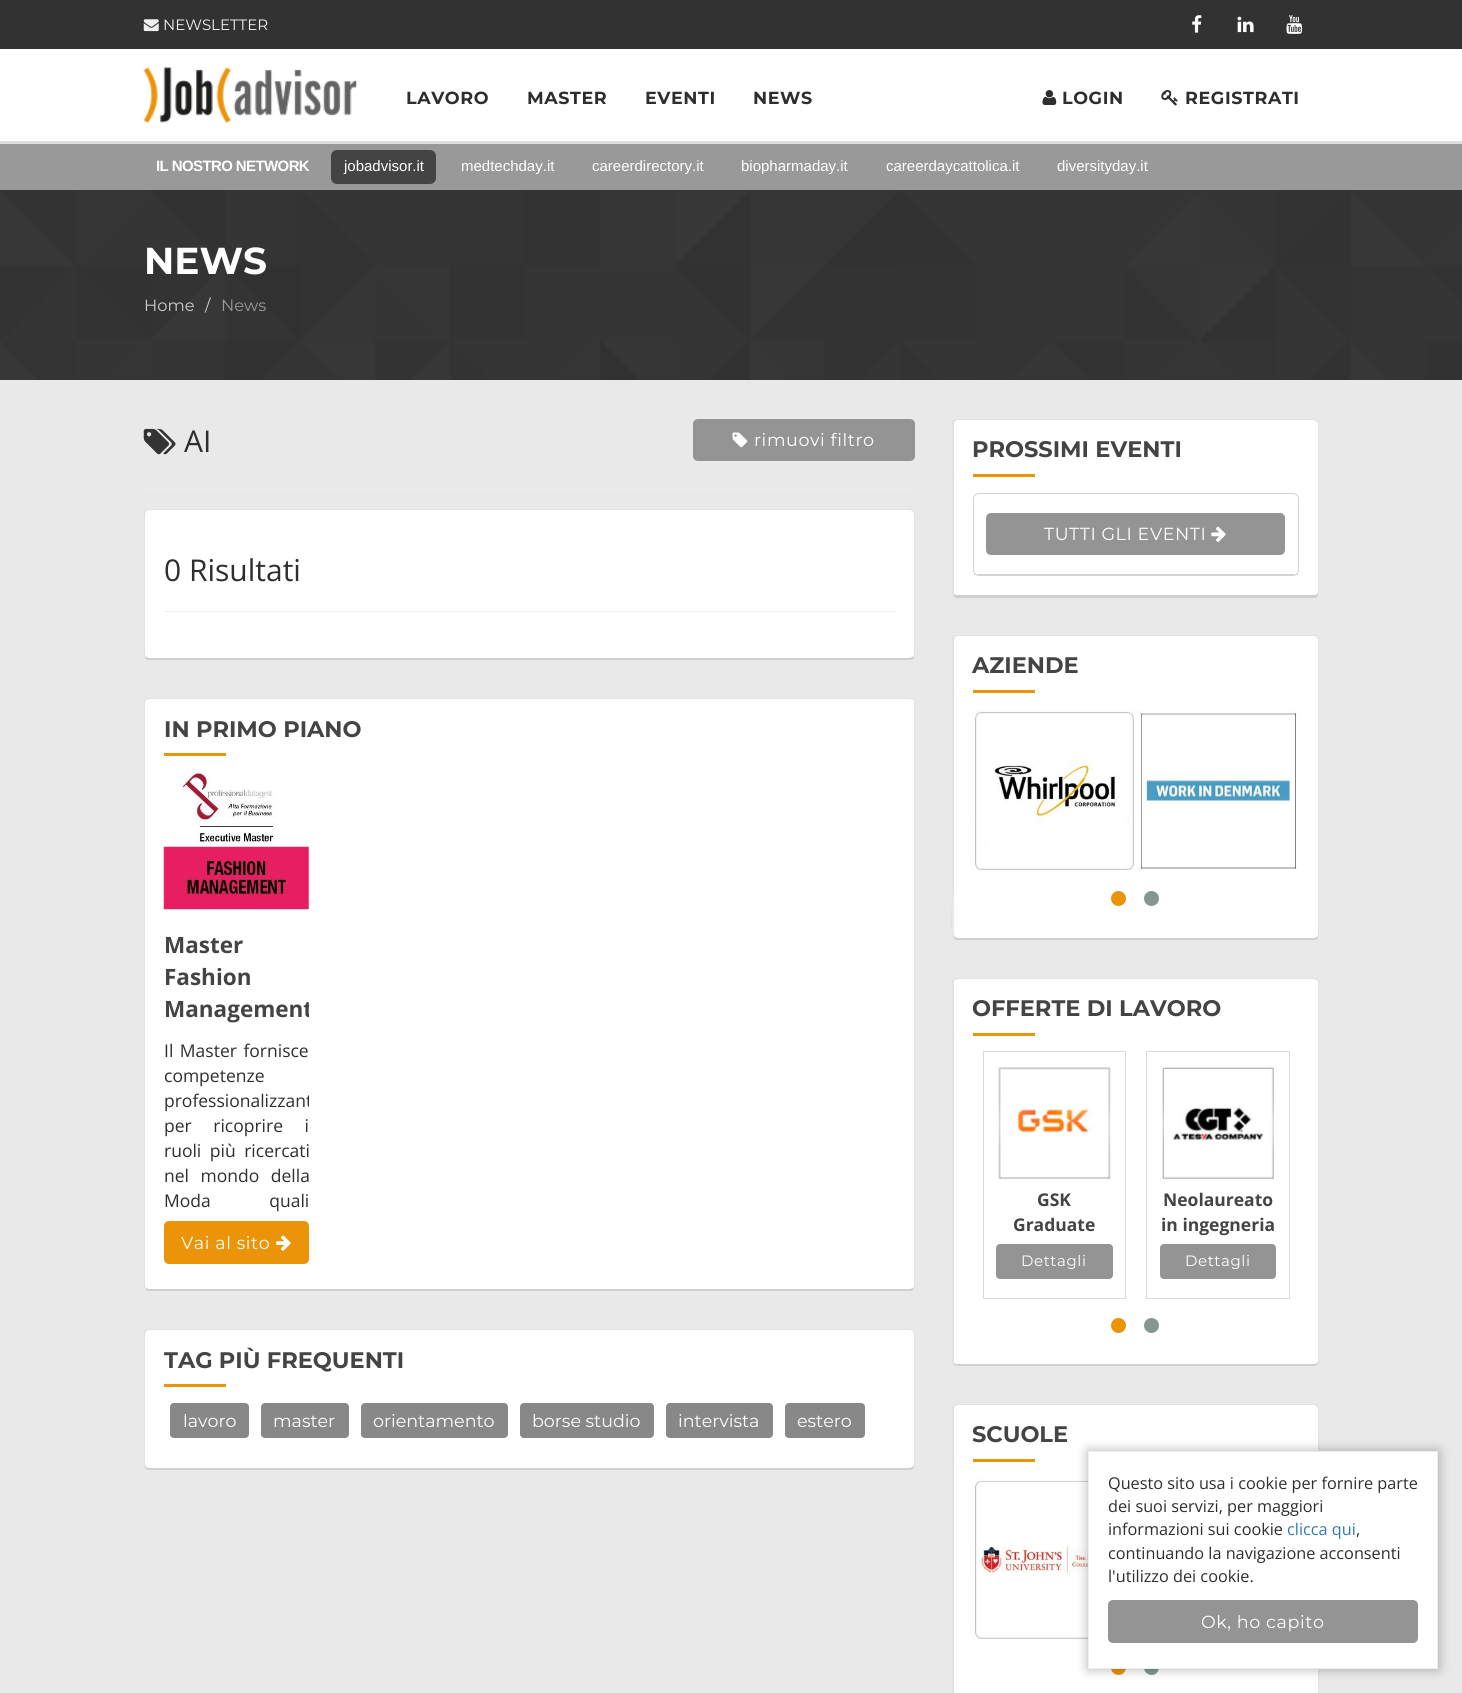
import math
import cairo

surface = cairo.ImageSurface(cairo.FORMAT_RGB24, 1462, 1693)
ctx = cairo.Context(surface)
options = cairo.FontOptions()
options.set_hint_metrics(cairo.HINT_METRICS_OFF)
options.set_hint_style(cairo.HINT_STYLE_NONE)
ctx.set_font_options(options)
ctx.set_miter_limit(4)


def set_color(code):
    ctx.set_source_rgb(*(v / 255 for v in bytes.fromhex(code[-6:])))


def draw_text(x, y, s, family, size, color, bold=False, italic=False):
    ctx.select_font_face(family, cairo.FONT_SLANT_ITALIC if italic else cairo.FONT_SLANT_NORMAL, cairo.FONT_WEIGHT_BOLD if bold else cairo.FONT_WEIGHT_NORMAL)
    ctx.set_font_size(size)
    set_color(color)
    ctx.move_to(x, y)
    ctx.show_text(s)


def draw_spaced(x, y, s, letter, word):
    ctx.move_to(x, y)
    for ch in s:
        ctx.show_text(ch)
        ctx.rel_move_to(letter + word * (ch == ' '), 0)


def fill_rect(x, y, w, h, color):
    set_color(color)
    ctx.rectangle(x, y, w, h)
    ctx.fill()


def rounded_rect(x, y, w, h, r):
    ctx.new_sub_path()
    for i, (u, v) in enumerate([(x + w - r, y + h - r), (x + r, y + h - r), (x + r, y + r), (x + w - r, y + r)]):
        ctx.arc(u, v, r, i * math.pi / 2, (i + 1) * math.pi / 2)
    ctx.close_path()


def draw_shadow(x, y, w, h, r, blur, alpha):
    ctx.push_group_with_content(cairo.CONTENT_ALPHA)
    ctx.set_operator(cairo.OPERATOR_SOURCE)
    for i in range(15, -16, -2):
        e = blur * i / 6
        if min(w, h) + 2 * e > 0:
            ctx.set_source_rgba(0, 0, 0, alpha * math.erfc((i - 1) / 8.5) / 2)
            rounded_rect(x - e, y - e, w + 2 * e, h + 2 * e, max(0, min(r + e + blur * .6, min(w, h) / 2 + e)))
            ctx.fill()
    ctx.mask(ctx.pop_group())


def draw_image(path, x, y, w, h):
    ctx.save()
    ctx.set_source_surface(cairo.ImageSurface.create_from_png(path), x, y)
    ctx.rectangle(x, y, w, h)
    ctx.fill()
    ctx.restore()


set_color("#e9e9e9")
ctx.paint()
fill_rect(0, 0, 1462, 49, "#323232")
draw_image("assets/img1.png", 143, 19, 16, 13)
draw_text(163, 30, "NEWSLETTER", "Montserrat", 15, "#f1f1f1")
draw_image("assets/img2.png", 1192, 15, 10, 18)
draw_image("assets/img3.png", 1237, 16, 17, 17)
draw_image("assets/img4.png", 1286, 15, 17, 19)
fill_rect(0, 49, 1462, 92, "#ffffff")
fill_rect(0, 141, 1462, 3, "#dddddd")
draw_image("assets/img5.png", 143, 67, 214, 56)
ctx.select_font_face("Montserrat", cairo.FONT_SLANT_NORMAL, cairo.FONT_WEIGHT_BOLD)
ctx.set_font_size(17.5)
set_color("#2e2e2e")
draw_spaced(406, 104, "LAVORO", 0.6, 0)
draw_spaced(527, 104, "MASTER", 0.6, 0)
draw_spaced(645, 104, "EVENTI", 0.6, 0)
draw_spaced(753, 104, "NEWS", 0.6, 0)
draw_image("assets/img6.png", 1042, 90, 15, 15)
draw_spaced(1062, 104, "LOGIN", 0.6, 0)
draw_image("assets/img7.png", 1161, 90, 17, 16)
draw_spaced(1185, 104, "REGISTRATI", 0.6, 0)
fill_rect(0, 144, 1462, 46, "#999999")
ctx.select_font_face("Liberation Sans", cairo.FONT_SLANT_NORMAL, cairo.FONT_WEIGHT_BOLD)
ctx.set_font_size(15)
set_color("#ffffff")
draw_spaced(156, 171, "IL NOSTRO NETWORK", -0.6, 0)
set_color("#444444")
rounded_rect(331, 150, 105, 34, 6)
ctx.fill()
draw_text(344, 171, "jobadvisor.it", "Liberation Sans", 15, "#ffffff")
draw_text(461, 171, "medtechday.it", "Liberation Sans", 15, "#ffffff")
draw_text(592, 171, "careerdirectory.it", "Liberation Sans", 15, "#ffffff")
draw_text(741, 171, "biopharmaday.it", "Liberation Sans", 15, "#ffffff")
draw_text(886, 171, "careerdaycattolica.it", "Liberation Sans", 15, "#ffffff")
draw_text(1057, 171, "diversityday.it", "Liberation Sans", 15, "#ffffff")
draw_image("assets/img8.png", 0, 190, 1462, 190)
draw_text(144, 274, "NEWS", "Montserrat", 37.5, "#ffffff", bold=True)
draw_text(144, 311, "Home", "Montserrat", 16.25, "#cccccc")
draw_text(205, 311, "/", "Montserrat", 16.25, "#cccccc")
draw_text(221, 311, "News", "Montserrat", 16.25, "#999999")
fill_rect(144, 489, 771, 1, "#eeeeee")
draw_image("assets/img9.png", 143, 428, 33, 27)
draw_text(184, 452, "AI", "Open Sans", 30, "#2e2e2e")
set_color("#949494")
rounded_rect(693, 419, 222, 42, 5)
ctx.fill()
draw_image("assets/img10.png", 732, 432, 16, 16)
ctx.select_font_face("Montserrat")
ctx.set_font_size(17.5)
set_color("#ffffff")
draw_spaced(754, 446, "rimuovi filtro", 0.6, 0)
ctx.new_path()
ctx.move_to(149, 510)
ctx.line_to(910, 510)
ctx.curve_to(912, 510, 914, 512, 914, 514)
ctx.line_to(914, 655)
ctx.curve_to(914, 656, 912, 658, 910, 658)
ctx.line_to(149, 658)
ctx.curve_to(147, 658, 145, 656, 145, 655)
ctx.line_to(145, 514)
ctx.curve_to(145, 512, 147, 510, 149, 510)
ctx.close_path()
ctx.fill()
set_color("#e2e2e2")
ctx.new_path()
ctx.move_to(149, 509)
ctx.curve_to(148, 509, 146, 510, 145, 510)
ctx.line_to(146, 511)
ctx.line_to(149, 510)
ctx.line_to(910, 510)
ctx.line_to(913, 511)
ctx.line_to(913, 510)
ctx.curve_to(913, 509, 911, 509, 910, 509)
ctx.close_path()
ctx.fill()
ctx.new_path()
ctx.move_to(913, 510)
ctx.curve_to(914, 511, 915, 512, 915, 514)
ctx.line_to(915, 655)
ctx.curve_to(915, 656, 915, 657, 914, 658)
ctx.line_to(913, 656)
ctx.line_to(914, 655)
ctx.line_to(914, 514)
ctx.line_to(913, 511)
ctx.close_path()
ctx.fill()
set_color("#cfcfcf")
ctx.new_path()
ctx.move_to(149, 660)
ctx.line_to(910, 660)
ctx.curve_to(912, 660, 913, 659, 914, 658)
ctx.line_to(913, 656)
ctx.curve_to(912, 657, 911, 658, 910, 658)
ctx.line_to(149, 658)
ctx.curve_to(148, 658, 146, 657, 146, 656)
ctx.line_to(145, 658)
ctx.curve_to(146, 659, 147, 660, 149, 660)
ctx.close_path()
ctx.fill()
set_color("#e2e2e2")
ctx.new_path()
ctx.move_to(145, 510)
ctx.curve_to(144, 511, 144, 512, 144, 514)
ctx.line_to(144, 655)
ctx.line_to(145, 658)
ctx.line_to(146, 656)
ctx.line_to(145, 655)
ctx.line_to(145, 514)
ctx.line_to(146, 511)
ctx.close_path()
ctx.fill()
draw_text(164, 581, "0 Risultati", "Open Sans", 30, "#2e2e2e")
fill_rect(164, 611, 731, 1, "#eeeeee")
set_color("#ffffff")
ctx.new_path()
ctx.move_to(149, 699)
ctx.line_to(910, 699)
ctx.curve_to(912, 699, 914, 700, 914, 702)
ctx.line_to(914, 1286)
ctx.curve_to(914, 1288, 912, 1289, 910, 1289)
ctx.line_to(149, 1289)
ctx.curve_to(147, 1289, 145, 1288, 145, 1286)
ctx.line_to(145, 702)
ctx.curve_to(145, 700, 147, 699, 149, 699)
ctx.close_path()
ctx.fill()
set_color("#e2e2e2")
ctx.new_path()
ctx.move_to(149, 698)
ctx.line_to(145, 699)
ctx.line_to(146, 700)
ctx.line_to(149, 699)
ctx.line_to(910, 699)
ctx.line_to(913, 700)
ctx.line_to(913, 699)
ctx.line_to(910, 698)
ctx.close_path()
ctx.fill()
ctx.new_path()
ctx.move_to(915, 1286)
ctx.line_to(915, 702)
ctx.line_to(913, 699)
ctx.line_to(913, 700)
ctx.line_to(914, 701)
ctx.line_to(914, 1286)
ctx.line_to(913, 1288)
ctx.line_to(914, 1289)
ctx.close_path()
ctx.fill()
set_color("#cfcfcf")
ctx.new_path()
ctx.move_to(914, 1289)
ctx.curve_to(913, 1290, 912, 1291, 910, 1291)
ctx.line_to(149, 1291)
ctx.curve_to(147, 1291, 146, 1290, 145, 1289)
ctx.line_to(146, 1288)
ctx.line_to(148, 1289)
ctx.line_to(910, 1289)
ctx.line_to(913, 1288)
ctx.close_path()
ctx.fill()
set_color("#e2e2e2")
ctx.new_path()
ctx.move_to(145, 699)
ctx.curve_to(145, 700, 144, 701, 144, 702)
ctx.line_to(144, 1286)
ctx.line_to(145, 1289)
ctx.line_to(146, 1288)
ctx.line_to(145, 1286)
ctx.line_to(145, 702)
ctx.line_to(146, 700)
ctx.close_path()
ctx.fill()
draw_text(164, 737, "IN PRIMO PIANO", "Montserrat", 22.5, "#444444", bold=True)
fill_rect(164, 753, 62, 3, "#eb940a")
draw_image("assets/img11.png", 163, 771, 146, 139)
draw_text(164, 953, "Master", "Open Sans", 22.5, "#444444", bold=True)
draw_text(164, 985, "Fashion", "Open Sans", 22.5, "#444444", bold=True)
ctx.save()
ctx.rectangle(164, 916, 145, 299)
ctx.clip()
draw_text(164, 1017, "Management", "Open Sans", 22.5, "#444444", bold=True)
ctx.restore()
ctx.select_font_face("Open Sans")
ctx.set_font_size(17.5)
set_color("#2e2e2e")
draw_spaced(164, 1057, "Il Master fornisce", 0, 2)
draw_text(164, 1082, "competenze", "Open Sans", 17.5, "#2e2e2e")
ctx.save()
ctx.rectangle(164, 916, 145, 299)
ctx.clip()
draw_text(164, 1107, "professionalizzant", "Open Sans", 17.5, "#2e2e2e")
ctx.restore()
draw_spaced(164, 1132, "per ricoprire i", 0, 17)
draw_spaced(164, 1157, "ruoli più ricercati", 0, 4)
draw_spaced(164, 1182, "nel mondo della", 0, 7)
draw_spaced(164, 1207, "Moda quali", 0, 54)
set_color("#eb940a")
rounded_rect(164, 1221, 145, 43, 5)
ctx.fill()
ctx.select_font_face("Montserrat")
set_color("#ffffff")
draw_spaced(181, 1249, "Vai al sito", 0.6, 0)
draw_image("assets/img12.png", 276, 1235, 15, 16)
ctx.new_path()
ctx.move_to(149, 1330)
ctx.line_to(910, 1330)
ctx.curve_to(912, 1330, 914, 1332, 914, 1334)
ctx.line_to(914, 1465)
ctx.curve_to(914, 1466, 912, 1468, 910, 1468)
ctx.line_to(149, 1468)
ctx.curve_to(147, 1468, 145, 1466, 145, 1465)
ctx.line_to(145, 1334)
ctx.curve_to(145, 1332, 147, 1330, 149, 1330)
ctx.close_path()
ctx.fill()
set_color("#e2e2e2")
ctx.new_path()
ctx.move_to(149, 1329)
ctx.curve_to(148, 1329, 146, 1330, 145, 1330)
ctx.line_to(146, 1331)
ctx.line_to(149, 1330)
ctx.line_to(910, 1330)
ctx.line_to(913, 1331)
ctx.line_to(913, 1330)
ctx.curve_to(913, 1329, 911, 1329, 910, 1329)
ctx.close_path()
ctx.fill()
ctx.new_path()
ctx.move_to(913, 1330)
ctx.curve_to(914, 1331, 915, 1332, 915, 1334)
ctx.line_to(915, 1465)
ctx.curve_to(915, 1466, 915, 1467, 914, 1468)
ctx.line_to(913, 1466)
ctx.line_to(914, 1465)
ctx.line_to(914, 1334)
ctx.line_to(913, 1331)
ctx.close_path()
ctx.fill()
set_color("#cfcfcf")
ctx.new_path()
ctx.move_to(149, 1470)
ctx.line_to(910, 1470)
ctx.curve_to(912, 1470, 913, 1469, 914, 1468)
ctx.line_to(913, 1466)
ctx.curve_to(912, 1467, 911, 1468, 910, 1468)
ctx.line_to(149, 1468)
ctx.curve_to(148, 1468, 146, 1467, 146, 1466)
ctx.line_to(145, 1468)
ctx.curve_to(146, 1469, 147, 1470, 149, 1470)
ctx.close_path()
ctx.fill()
set_color("#e2e2e2")
ctx.new_path()
ctx.move_to(145, 1330)
ctx.curve_to(144, 1331, 144, 1332, 144, 1334)
ctx.line_to(144, 1465)
ctx.line_to(145, 1468)
ctx.line_to(146, 1466)
ctx.line_to(145, 1465)
ctx.line_to(145, 1334)
ctx.line_to(146, 1331)
ctx.close_path()
ctx.fill()
draw_text(164, 1368, "TAG PIÙ FREQUENTI", "Montserrat", 22.5, "#444444", bold=True)
fill_rect(164, 1384, 62, 3, "#eb940a")
set_color("#888888")
rounded_rect(170, 1403, 79, 35, 4)
ctx.fill()
draw_text(183, 1427, "lavoro", "Montserrat", 17.5, "#ffffff")
set_color("#888888")
rounded_rect(261, 1403, 88, 35, 4)
ctx.fill()
draw_text(273, 1427, "master", "Montserrat", 17.5, "#ffffff")
set_color("#888888")
rounded_rect(361, 1403, 147, 35, 4)
ctx.fill()
draw_text(373, 1427, "orientamento", "Montserrat", 17.5, "#ffffff")
set_color("#888888")
rounded_rect(520, 1403, 134, 35, 4)
ctx.fill()
draw_text(532, 1427, "borse studio", "Montserrat", 17.5, "#ffffff")
set_color("#888888")
rounded_rect(666, 1403, 107, 35, 4)
ctx.fill()
draw_text(678, 1427, "intervista", "Montserrat", 17.5, "#ffffff")
set_color("#888888")
rounded_rect(785, 1403, 80, 35, 4)
ctx.fill()
draw_text(797, 1427, "estero", "Montserrat", 17.5, "#ffffff")
ctx.new_path()
ctx.move_to(958, 420)
ctx.line_to(1314, 420)
ctx.curve_to(1316, 420, 1318, 422, 1318, 424)
ctx.line_to(1318, 592)
ctx.curve_to(1318, 594, 1316, 595, 1314, 595)
ctx.line_to(958, 595)
ctx.curve_to(955, 595, 954, 594, 954, 592)
ctx.line_to(954, 424)
ctx.curve_to(954, 422, 955, 420, 958, 420)
ctx.close_path()
ctx.fill()
set_color("#e2e2e2")
ctx.new_path()
ctx.move_to(958, 419)
ctx.line_to(954, 420)
ctx.line_to(955, 421)
ctx.line_to(957, 420)
ctx.line_to(1314, 420)
ctx.line_to(1316, 421)
ctx.line_to(1317, 420)
ctx.line_to(1314, 419)
ctx.close_path()
ctx.fill()
ctx.new_path()
ctx.move_to(1317, 420)
ctx.line_to(1319, 422)
ctx.line_to(1319, 594)
ctx.line_to(1318, 596)
ctx.line_to(1317, 594)
ctx.line_to(1318, 592)
ctx.line_to(1318, 424)
ctx.curve_to(1318, 423, 1317, 422, 1316, 421)
ctx.close_path()
ctx.fill()
set_color("#cfcfcf")
ctx.new_path()
ctx.move_to(956, 598)
ctx.line_to(953, 596)
ctx.line_to(954, 594)
ctx.curve_to(955, 595, 956, 595, 958, 595)
ctx.line_to(1314, 595)
ctx.curve_to(1315, 595, 1316, 595, 1317, 594)
ctx.line_to(1318, 596)
ctx.line_to(1316, 598)
ctx.close_path()
ctx.fill()
set_color("#e2e2e2")
ctx.new_path()
ctx.move_to(952, 422)
ctx.line_to(954, 420)
ctx.line_to(955, 421)
ctx.line_to(954, 424)
ctx.line_to(954, 592)
ctx.line_to(954, 594)
ctx.line_to(953, 596)
ctx.line_to(952, 594)
ctx.close_path()
ctx.fill()
draw_text(972, 457, "PROSSIMI EVENTI", "Montserrat", 22.5, "#444444", bold=True)
fill_rect(973, 474, 62, 3, "#eb940a")
rounded_rect(973.5, 493.5, 325, 82, 5.5)
set_color("#d3d3d3")
ctx.set_line_width(1)
ctx.stroke()
fill_rect(974, 574, 324, 1, "#d3d3d3")
set_color("#949494")
rounded_rect(986, 513, 299, 42, 5)
ctx.fill()
ctx.select_font_face("Montserrat")
ctx.set_font_size(17.5)
set_color("#ffffff")
draw_spaced(1044, 540, "TUTTI GLI EVENTI", 0.6, 0)
draw_image("assets/img13.png", 1211, 526, 15, 16)
ctx.new_path()
ctx.move_to(958, 636)
ctx.line_to(1314, 636)
ctx.curve_to(1316, 636, 1318, 638, 1318, 640)
ctx.line_to(1318, 935)
ctx.curve_to(1318, 936, 1316, 938, 1314, 938)
ctx.line_to(958, 938)
ctx.curve_to(955, 938, 954, 936, 954, 935)
ctx.line_to(954, 640)
ctx.curve_to(954, 638, 955, 636, 958, 636)
ctx.close_path()
ctx.fill()
set_color("#e2e2e2")
ctx.new_path()
ctx.move_to(958, 635)
ctx.curve_to(956, 635, 955, 636, 954, 636)
ctx.line_to(955, 637)
ctx.curve_to(955, 637, 956, 636, 958, 636)
ctx.line_to(1314, 636)
ctx.curve_to(1315, 636, 1316, 636, 1317, 637)
ctx.line_to(1317, 636)
ctx.curve_to(1317, 635, 1315, 635, 1314, 635)
ctx.close_path()
ctx.fill()
ctx.new_path()
ctx.move_to(1319, 937)
ctx.line_to(1318, 938)
ctx.line_to(1317, 937)
ctx.line_to(1318, 935)
ctx.line_to(1318, 640)
ctx.curve_to(1318, 639, 1317, 638, 1317, 637)
ctx.line_to(1317, 636)
ctx.line_to(1319, 638)
ctx.close_path()
ctx.fill()
set_color("#cfcfcf")
ctx.new_path()
ctx.move_to(958, 940)
ctx.line_to(1314, 940)
ctx.curve_to(1316, 940, 1317, 939, 1318, 938)
ctx.line_to(1317, 937)
ctx.curve_to(1316, 937, 1315, 938, 1314, 938)
ctx.line_to(958, 938)
ctx.curve_to(956, 938, 955, 937, 954, 936)
ctx.line_to(953, 938)
ctx.curve_to(955, 939, 956, 940, 958, 940)
ctx.close_path()
ctx.fill()
set_color("#e2e2e2")
ctx.new_path()
ctx.move_to(952, 638)
ctx.line_to(954, 636)
ctx.line_to(955, 637)
ctx.line_to(954, 640)
ctx.line_to(954, 886)
ctx.curve_to(954, 903, 946, 922, 954, 936)
ctx.line_to(953, 938)
ctx.line_to(952, 937)
ctx.close_path()
ctx.fill()
draw_text(972, 673, "AZIENDE", "Montserrat", 22.5, "#444444", bold=True)
fill_rect(973, 690, 62, 3, "#eb940a")
draw_image("assets/img14.png", 973, 709, 161, 162)
draw_image("assets/img15.png", 1136, 710, 162, 161)
ctx.arc(1118.5, 898.5, 7.5, 0, 2 * math.pi)
ctx.fill()
set_color("#869791")
ctx.arc(1151.5, 898.5, 7.5, 0, 2 * math.pi)
ctx.fill()
set_color("#ffffff")
ctx.new_path()
ctx.move_to(958, 979)
ctx.line_to(1314, 979)
ctx.curve_to(1316, 979, 1318, 980, 1318, 982)
ctx.line_to(1318, 1361)
ctx.curve_to(1318, 1363, 1316, 1364, 1314, 1364)
ctx.line_to(958, 1364)
ctx.curve_to(955, 1364, 954, 1363, 954, 1361)
ctx.line_to(954, 982)
ctx.curve_to(954, 980, 955, 979, 958, 979)
ctx.close_path()
ctx.fill()
set_color("#e2e2e2")
ctx.new_path()
ctx.move_to(958, 978)
ctx.line_to(954, 979)
ctx.line_to(955, 980)
ctx.line_to(958, 979)
ctx.line_to(1314, 979)
ctx.line_to(1317, 980)
ctx.line_to(1317, 979)
ctx.line_to(1314, 978)
ctx.close_path()
ctx.fill()
ctx.new_path()
ctx.move_to(1317, 979)
ctx.line_to(1319, 981)
ctx.line_to(1319, 1363)
ctx.line_to(1318, 1364)
ctx.line_to(1317, 1363)
ctx.line_to(1318, 1361)
ctx.line_to(1318, 982)
ctx.curve_to(1318, 981, 1317, 980, 1317, 980)
ctx.close_path()
ctx.fill()
set_color("#cfcfcf")
ctx.new_path()
ctx.move_to(1318, 1364)
ctx.curve_to(1317, 1365, 1316, 1366, 1314, 1366)
ctx.line_to(958, 1366)
ctx.curve_to(956, 1366, 955, 1365, 953, 1364)
ctx.line_to(954, 1363)
ctx.curve_to(955, 1364, 956, 1364, 958, 1364)
ctx.line_to(1314, 1364)
ctx.curve_to(1315, 1364, 1316, 1364, 1317, 1363)
ctx.close_path()
ctx.fill()
set_color("#e2e2e2")
ctx.new_path()
ctx.move_to(952, 981)
ctx.line_to(954, 979)
ctx.line_to(955, 980)
ctx.line_to(954, 981)
ctx.line_to(954, 1363)
ctx.line_to(953, 1364)
ctx.line_to(952, 1363)
ctx.close_path()
ctx.fill()
draw_text(972, 1016, "OFFERTE DI LAVORO", "Montserrat", 22.5, "#444444", bold=True)
fill_rect(973, 1033, 62, 3, "#eb940a")
ctx.rectangle(983.5, 1051.5, 142, 247)
set_color("#d9d9d9")
ctx.stroke()
draw_image("assets/img16.png", 996, 1066, 115, 114)
draw_text(1037, 1206, "GSK", "Open Sans", 17.5, "#444444", bold=True)
draw_text(1013, 1231, "Graduate", "Open Sans", 17.5, "#444444", bold=True)
set_color("#949494")
rounded_rect(996, 1244, 117, 35, 4)
ctx.fill()
ctx.select_font_face("Montserrat")
ctx.set_font_size(15)
set_color("#ffffff")
draw_spaced(1021, 1266, "Dettagli", 0.6, 0)
ctx.rectangle(1146.5, 1051.5, 143, 247)
set_color("#d9d9d9")
ctx.stroke()
draw_image("assets/img17.png", 1160, 1066, 114, 114)
draw_text(1163, 1206, "Neolaureato", "Open Sans", 17.5, "#444444", bold=True)
draw_text(1161, 1231, "in ingegneria", "Open Sans", 17.5, "#444444", bold=True)
set_color("#949494")
rounded_rect(1160, 1244, 116, 35, 4)
ctx.fill()
ctx.select_font_face("Montserrat")
ctx.set_font_size(15)
set_color("#ffffff")
draw_spaced(1185, 1266, "Dettagli", 0.6, 0)
set_color("#eb940a")
ctx.new_path()
ctx.arc(1118.5, 1325.5, 7.5, 0, 2 * math.pi)
ctx.fill()
set_color("#869791")
ctx.arc(1151.5, 1325.5, 7.5, 0, 2 * math.pi)
ctx.fill()
set_color("#ffffff")
ctx.new_path()
ctx.move_to(958, 1405)
ctx.line_to(1314, 1405)
ctx.curve_to(1316, 1405, 1318, 1407, 1318, 1409)
ctx.line_to(1318, 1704)
ctx.curve_to(1318, 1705, 1316, 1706, 1314, 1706)
ctx.line_to(958, 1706)
ctx.curve_to(955, 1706, 954, 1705, 954, 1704)
ctx.line_to(954, 1409)
ctx.curve_to(954, 1407, 955, 1405, 958, 1405)
ctx.close_path()
ctx.fill()
set_color("#e2e2e2")
ctx.new_path()
ctx.move_to(958, 1404)
ctx.line_to(954, 1405)
ctx.line_to(955, 1406)
ctx.line_to(957, 1405)
ctx.line_to(1314, 1405)
ctx.line_to(1316, 1406)
ctx.line_to(1317, 1405)
ctx.line_to(1314, 1404)
ctx.close_path()
ctx.fill()
ctx.new_path()
ctx.move_to(1317, 1405)
ctx.line_to(1319, 1407)
ctx.line_to(1319, 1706)
ctx.line_to(1318, 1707)
ctx.line_to(1317, 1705)
ctx.line_to(1318, 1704)
ctx.line_to(1318, 1409)
ctx.curve_to(1318, 1408, 1317, 1407, 1316, 1406)
ctx.close_path()
ctx.fill()
ctx.new_path()
ctx.move_to(952, 1407)
ctx.line_to(954, 1405)
ctx.line_to(955, 1406)
ctx.line_to(954, 1409)
ctx.line_to(954, 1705)
ctx.line_to(953, 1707)
ctx.line_to(952, 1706)
ctx.close_path()
ctx.fill()
draw_text(972, 1442, "SCUOLE", "Montserrat", 22.5, "#444444", bold=True)
fill_rect(973, 1459, 62, 3, "#eb940a")
draw_image("assets/img18.png", 973, 1478, 115, 162)
ctx.arc(1118.5, 1667.5, 7.5, 0, 2 * math.pi)
ctx.fill()
set_color("#869791")
ctx.arc(1151.5, 1667.5, 7.5, 0, 2 * math.pi)
ctx.fill()
set_color("#000000")
draw_shadow(1088, 1451, 350, 218, 0, 6, 0.3)
set_color("#ffffff")
ctx.rectangle(1088.5, 1451.5, 349, 217)
ctx.fill_preserve()
set_color("#eeeeee")
ctx.stroke()
draw_text(1108, 1489, "Questo sito usa i cookie per fornire parte", "Open Sans", 16.25, "#2e2e2e")
draw_text(1108, 1512, "dei suoi servizi, per maggiori", "Open Sans", 16.25, "#2e2e2e")
draw_text(1108, 1535, "informazioni sui cookie", "Open Sans", 16.25, "#2e2e2e")
draw_text(1287, 1535, "clicca qui", "Open Sans", 16.25, "#337ab7")
draw_text(1356, 1535, ",", "Open Sans", 16.25, "#2e2e2e")
draw_text(1108, 1559, "continuando la navigazione acconsenti", "Open Sans", 16.25, "#2e2e2e")
draw_text(1108, 1582, "l'utilizzo dei cookie.", "Open Sans", 16.25, "#2e2e2e")
set_color("#949494")
rounded_rect(1108, 1600, 310, 43, 5)
ctx.fill()
ctx.select_font_face("Montserrat")
ctx.set_font_size(17.5)
set_color("#ffffff")
draw_spaced(1201, 1628, "Ok, ho capito", 0.6, 0)
surface.write_to_png("output.png")
